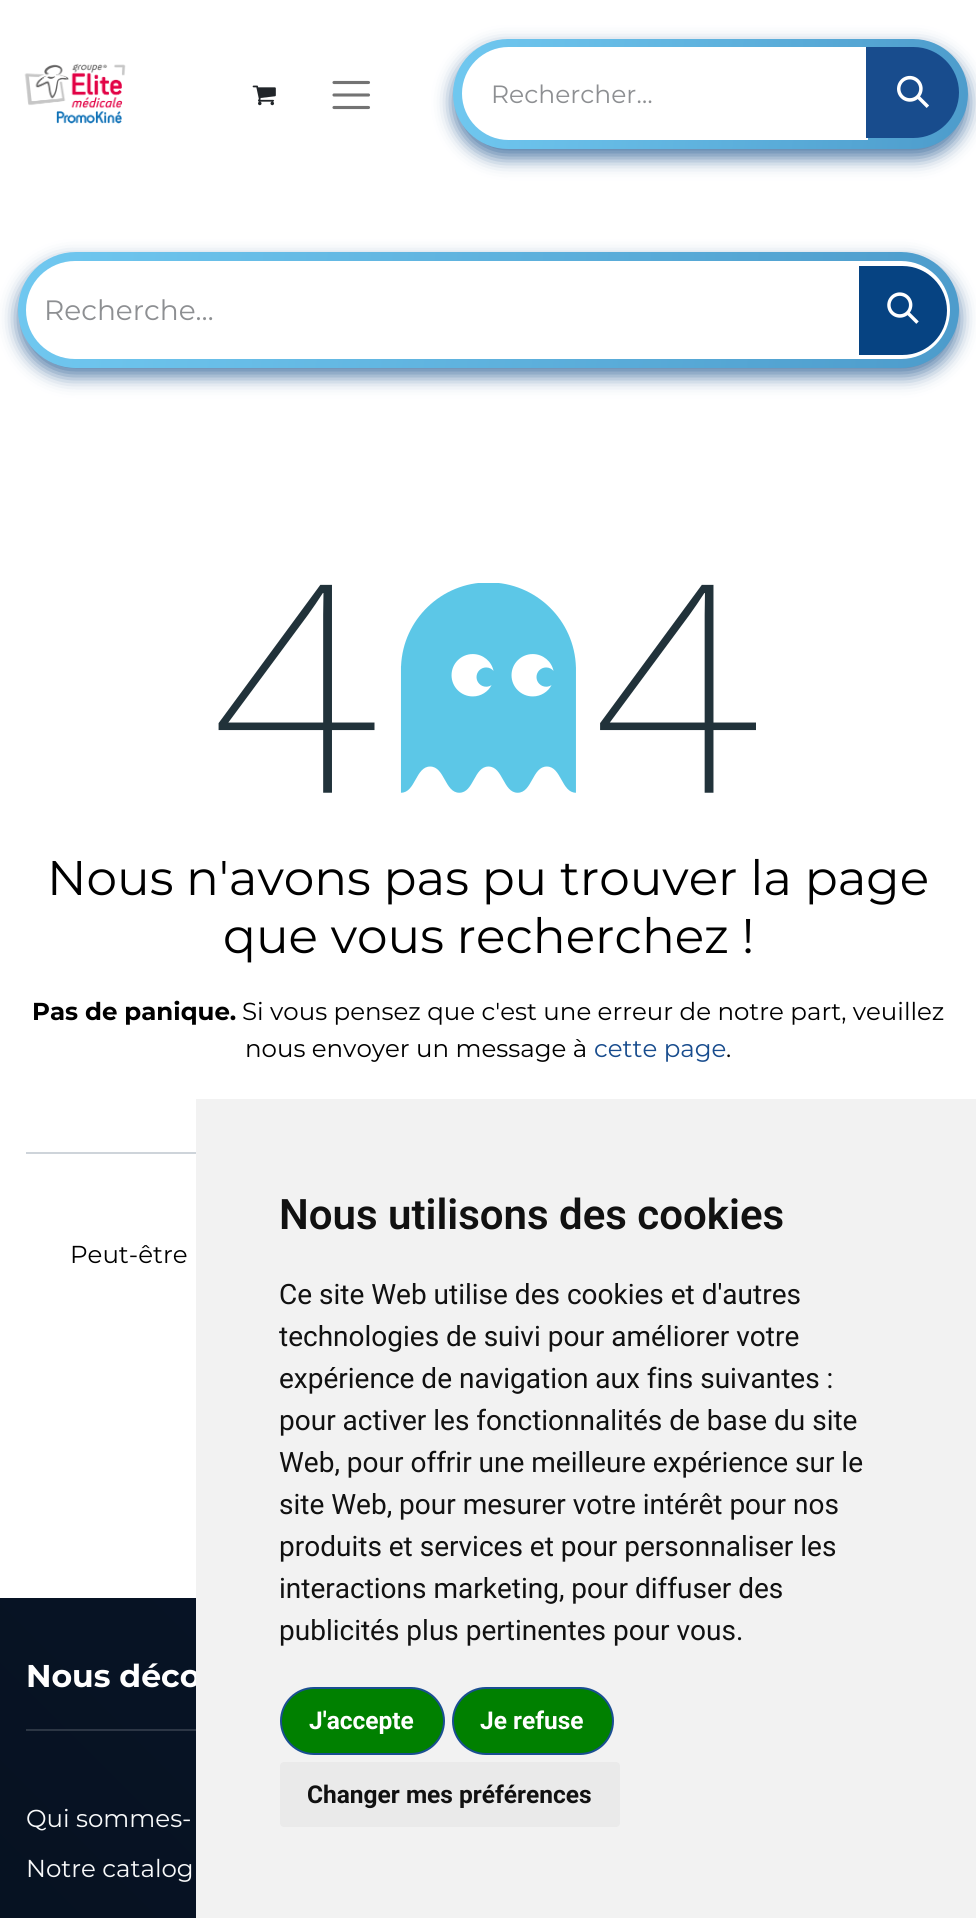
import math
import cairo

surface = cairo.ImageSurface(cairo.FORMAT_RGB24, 976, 1918)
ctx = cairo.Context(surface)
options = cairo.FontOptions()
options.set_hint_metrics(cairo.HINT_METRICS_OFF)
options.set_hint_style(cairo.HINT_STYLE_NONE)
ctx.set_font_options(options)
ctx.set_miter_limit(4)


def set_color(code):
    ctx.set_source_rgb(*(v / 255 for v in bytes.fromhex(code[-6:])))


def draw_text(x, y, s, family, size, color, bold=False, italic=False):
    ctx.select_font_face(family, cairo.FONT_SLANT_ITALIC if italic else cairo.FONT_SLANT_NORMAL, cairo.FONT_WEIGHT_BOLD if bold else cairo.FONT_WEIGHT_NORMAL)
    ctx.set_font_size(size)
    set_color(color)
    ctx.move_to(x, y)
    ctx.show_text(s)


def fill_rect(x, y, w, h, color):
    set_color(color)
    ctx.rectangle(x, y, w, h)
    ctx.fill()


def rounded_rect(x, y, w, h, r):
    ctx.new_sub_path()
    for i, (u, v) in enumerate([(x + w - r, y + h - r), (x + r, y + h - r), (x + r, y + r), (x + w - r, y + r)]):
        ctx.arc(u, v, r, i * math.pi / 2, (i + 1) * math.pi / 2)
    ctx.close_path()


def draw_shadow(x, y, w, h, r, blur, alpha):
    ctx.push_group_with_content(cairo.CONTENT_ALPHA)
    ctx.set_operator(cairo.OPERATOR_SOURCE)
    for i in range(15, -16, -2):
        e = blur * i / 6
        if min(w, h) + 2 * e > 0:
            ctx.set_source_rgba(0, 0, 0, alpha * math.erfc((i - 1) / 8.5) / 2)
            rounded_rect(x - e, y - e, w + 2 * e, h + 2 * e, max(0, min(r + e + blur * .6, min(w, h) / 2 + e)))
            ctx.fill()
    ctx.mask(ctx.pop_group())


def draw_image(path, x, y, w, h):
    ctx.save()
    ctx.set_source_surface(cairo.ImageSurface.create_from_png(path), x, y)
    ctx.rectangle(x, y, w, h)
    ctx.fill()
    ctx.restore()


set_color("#ffffff")
ctx.paint()
draw_image("assets/img1.png", 24, 63, 102, 61)
draw_image("assets/img2.png", 252, 85, 24, 21)
ctx.new_path()
ctx.move_to(334, 82.5)
ctx.line_to(368.5, 82.5)
ctx.move_to(334, 95)
ctx.line_to(368.5, 95)
ctx.move_to(334, 107.5)
ctx.line_to(368.5, 107.5)
set_color("#737373")
ctx.set_line_width(3.1)
ctx.set_line_cap(cairo.LINE_CAP_ROUND)
ctx.stroke()
set_color("#064382")
draw_shadow(453, 47, 515, 111, 55.5, 9, 0.7)
gradient = cairo.LinearGradient(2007, 285, 445, 121)
gradient.add_color_stop_rgba(0, 0.024, 0.263, 0.51, 1)
gradient.add_color_stop_rgba(1, 0.439, 0.784, 0.941, 1)
ctx.set_source(gradient)
rounded_rect(453, 39, 515, 110, 55)
ctx.fill()
set_color("#ffffff")
ctx.new_path()
ctx.move_to(508.5, 47)
ctx.line_to(868, 47)
ctx.line_to(868, 140)
ctx.line_to(508.5, 140)
ctx.curve_to(483, 140, 462, 119, 462, 93.5)
ctx.curve_to(462, 68, 483, 47, 508.5, 47)
ctx.close_path()
ctx.fill()
draw_text(491, 103, "Rechercher…", "Montserrat", 25, "#8d8f92")
set_color("#184c8d")
ctx.new_path()
ctx.move_to(866, 47)
ctx.line_to(913.5, 47)
ctx.curve_to(938.5, 47, 959, 67.5, 959, 92.5)
ctx.curve_to(959, 117.5, 938.5, 138, 913.5, 138)
ctx.line_to(866, 138)
ctx.close_path()
ctx.fill()
draw_image("assets/img3.png", 897, 75, 32, 33)
set_color("#064382")
draw_shadow(18, 261, 941, 115, 57.5, 9, 0.7)
gradient = cairo.LinearGradient(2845, 574, 15, 277)
gradient.add_color_stop_rgba(0, 0.024, 0.263, 0.51, 1)
gradient.add_color_stop_rgba(1, 0.439, 0.784, 0.941, 1)
ctx.set_source(gradient)
rounded_rect(18, 252, 941, 116, 58)
ctx.fill()
set_color("#ffffff")
rounded_rect(26, 261, 924, 98, 49)
ctx.fill()
draw_text(44, 320, "Recherche…", "Montserrat", 28, "#8d8f92")
set_color("#064382")
ctx.new_path()
ctx.move_to(859, 266)
ctx.line_to(902.5, 266)
ctx.curve_to(927, 266, 947, 286, 947, 310.5)
ctx.curve_to(947, 335, 927, 355, 902.5, 355)
ctx.line_to(859, 355)
ctx.close_path()
ctx.fill()
draw_image("assets/img4.png", 887, 292, 32, 32)
draw_image("assets/img5.png", 218, 583, 538, 210)
draw_text(47, 895, "Nous n'avons pas pu trouver la page", "Montserrat", 48.6, "#000000")
draw_text(223, 953, "que vous recherchez !", "Montserrat", 48.6, "#000000")
draw_text(32, 1020, "Pas de panique.", "Montserrat", 24.5, "#000000", bold=True)
draw_text(242, 1020, "Si vous pensez que c'est une erreur de notre part, veuillez", "Montserrat", 24.5, "#000000")
draw_text(245, 1057, "nous envoyer un message à", "Montserrat", 24.5, "#000000")
draw_text(594, 1057, "cette page", "Montserrat", 24.5, "#184c8d")
draw_text(726, 1057, ".", "Montserrat", 24.5, "#000000")
fill_rect(26, 1152, 170, 2, "#ced4da")
draw_text(70, 1263, "Peut-être", "Montserrat", 24.5, "#000000")
gradient = cairo.LinearGradient(-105, 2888, 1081, 1702)
gradient.add_color_stop_rgba(0, 0.086, 0.263, 0.486, 1)
gradient.add_color_stop_rgba(0.23, 0.024, 0.063, 0.118, 1)
gradient.add_color_stop_rgba(0.75, 0.027, 0.078, 0.149, 1)
gradient.add_color_stop_rgba(1, 0.098, 0.306, 0.569, 1)
ctx.set_source(gradient)
ctx.rectangle(0, 1598, 196, 320)
ctx.fill()
gradient = cairo.LinearGradient(-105, 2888, 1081, 1702)
gradient.add_color_stop_rgba(0, 0.224, 0.373, 0.565, 1)
gradient.add_color_stop_rgba(0.23, 0.169, 0.204, 0.251, 1)
gradient.add_color_stop_rgba(0.75, 0.173, 0.216, 0.278, 1)
gradient.add_color_stop_rgba(1, 0.235, 0.412, 0.635, 1)
ctx.set_source(gradient)
ctx.rectangle(26, 1729, 170, 2)
ctx.fill()
draw_text(26, 1687, "Nous déco", "Montserrat", 31.5, "#ffffff", bold=True)
draw_text(26, 1827, "Qui sommes-", "Montserrat", 24.5, "#f8f9fa")
draw_text(26, 1877, "Notre catalog", "Montserrat", 24.5, "#f8f9fa")
fill_rect(196, 1099, 780, 819, "#f2f2f2")
draw_text(279, 1229, "Nous utilisons des cookies", "Roboto SemiBold", 42, "#111111")
draw_text(279, 1304, "Ce site Web utilise des cookies et d'autres", "Roboto", 28, "#111111")
draw_text(279, 1346, "technologies de suivi pour améliorer votre", "Roboto", 28, "#111111")
draw_text(279, 1388, "expérience de navigation aux fins suivantes :", "Roboto", 28, "#111111")
draw_text(279, 1430, "pour activer les fonctionnalités de base du site", "Roboto", 28, "#111111")
draw_text(279, 1472, "Web, pour offrir une meilleure expérience sur le", "Roboto", 28, "#111111")
draw_text(279, 1514, "site Web, pour mesurer votre intérêt pour nos", "Roboto", 28, "#111111")
draw_text(279, 1556, "produits et services et pour personnaliser les", "Roboto", 28, "#111111")
draw_text(279, 1598, "interactions marketing, pour diffuser des", "Roboto", 28, "#111111")
draw_text(279, 1640, "publicités plus pertinentes pour vous.", "Roboto", 28, "#111111")
set_color("#008000")
rounded_rect(281, 1688, 163, 66, 33)
ctx.fill_preserve()
set_color("#194e91")
ctx.set_line_width(2)
ctx.set_line_cap(cairo.LINE_CAP_BUTT)
ctx.stroke()
draw_text(309, 1729, "J'accepte", "Roboto", 24.5, "#ffffff", bold=True)
set_color("#008000")
rounded_rect(453, 1688, 160, 66, 33)
ctx.fill_preserve()
set_color("#194e91")
ctx.stroke()
draw_text(480, 1729, "Je refuse", "Roboto", 24.5, "#ffffff", bold=True)
set_color("#eaeaea")
rounded_rect(280, 1762, 340, 65, 4)
ctx.fill()
draw_text(307, 1803, "Changer mes préférences", "Roboto", 24.5, "#111111", bold=True)
surface.write_to_png("output.png")
